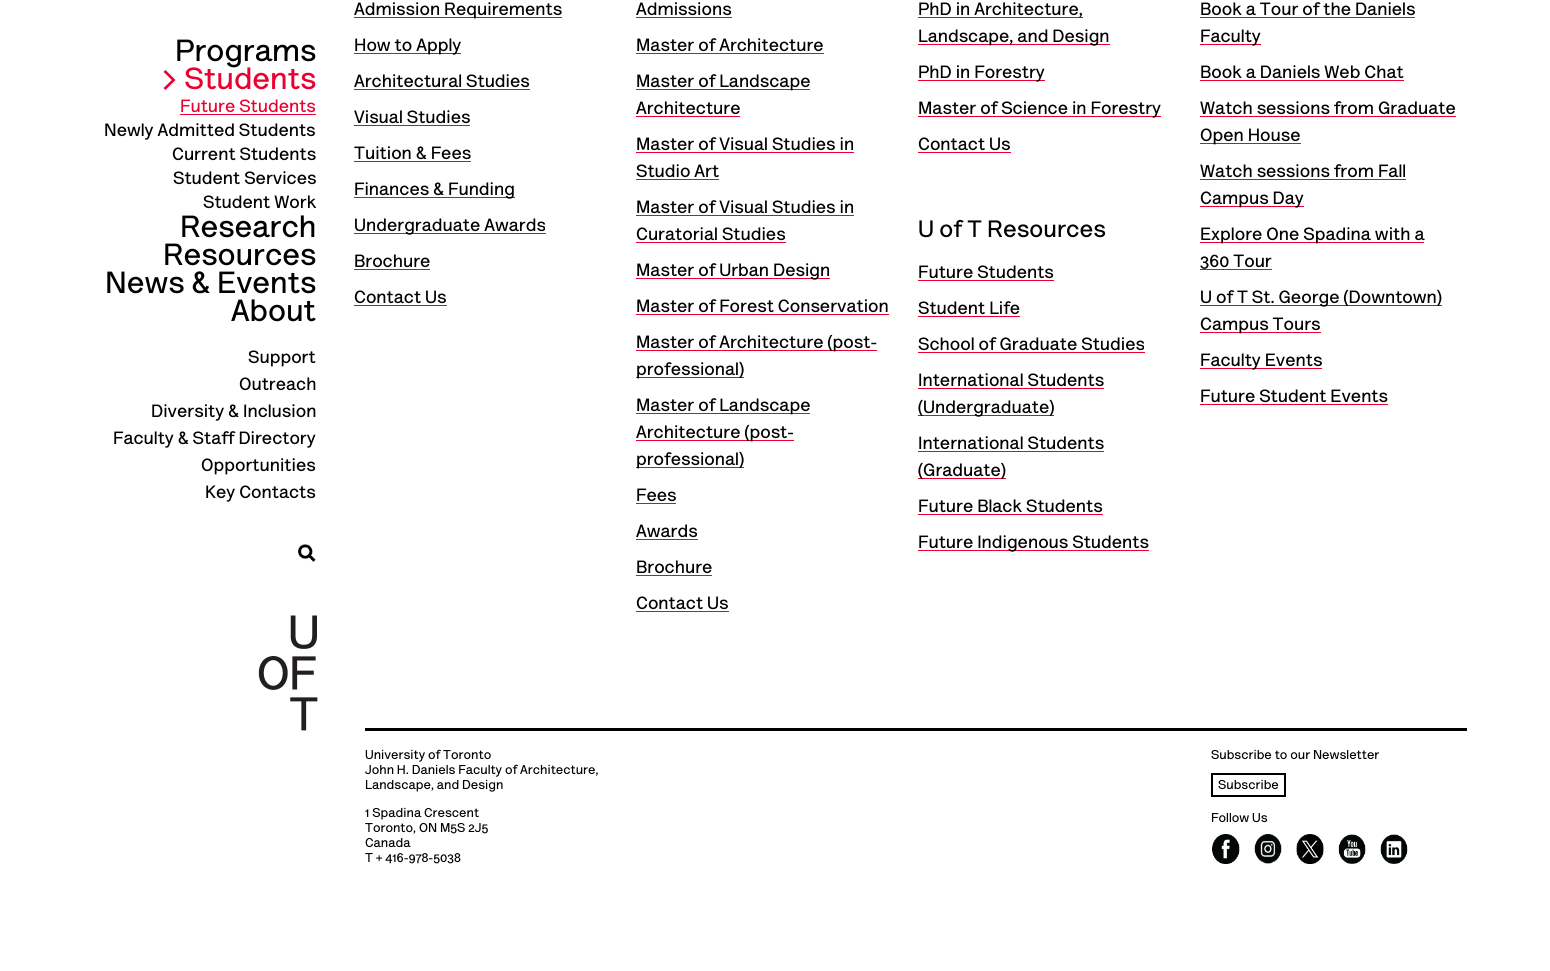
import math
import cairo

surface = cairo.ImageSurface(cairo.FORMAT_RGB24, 1550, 971)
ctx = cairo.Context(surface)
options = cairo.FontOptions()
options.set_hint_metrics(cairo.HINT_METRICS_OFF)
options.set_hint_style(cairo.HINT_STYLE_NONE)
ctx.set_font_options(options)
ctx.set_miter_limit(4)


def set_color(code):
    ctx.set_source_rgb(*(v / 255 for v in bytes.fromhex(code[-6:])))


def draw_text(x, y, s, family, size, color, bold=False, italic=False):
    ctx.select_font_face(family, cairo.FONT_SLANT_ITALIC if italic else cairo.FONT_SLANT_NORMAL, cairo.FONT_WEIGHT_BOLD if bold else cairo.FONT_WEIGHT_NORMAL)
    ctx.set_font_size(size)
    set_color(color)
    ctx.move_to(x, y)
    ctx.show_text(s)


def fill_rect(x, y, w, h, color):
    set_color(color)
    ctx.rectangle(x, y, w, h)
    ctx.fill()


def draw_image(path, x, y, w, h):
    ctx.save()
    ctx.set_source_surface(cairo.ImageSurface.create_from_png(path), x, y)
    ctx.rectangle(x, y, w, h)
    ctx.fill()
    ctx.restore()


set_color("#ffffff")
ctx.paint()
draw_text(175, 61, "Programs", "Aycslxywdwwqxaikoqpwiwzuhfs", 31, "#000000", bold=True)
draw_text(161, 89, "> Students", "Aycslxywdwwqxaikoqpwiwzuhfs", 31, "#eb0032", bold=True)
draw_text(180, 112, "Future Students", "Aycslxywdwwqxaikoqpwiwzuhfs", 18, "#eb0032", bold=True)
fill_rect(180, 114, 136, 1, "#eb0032")
draw_text(104, 136, "Newly Admitted Students", "Aycslxywdwwqxaikoqpwiwzuhfs", 18, "#000000", bold=True)
draw_text(172, 160, "Current Students", "Aycslxywdwwqxaikoqpwiwzuhfs", 18, "#000000", bold=True)
draw_text(173, 184, "Student Services", "Aycslxywdwwqxaikoqpwiwzuhfs", 18, "#000000", bold=True)
draw_text(203, 208, "Student Work", "Aycslxywdwwqxaikoqpwiwzuhfs", 18, "#000000", bold=True)
draw_text(180, 237, "Research", "Aycslxywdwwqxaikoqpwiwzuhfs", 31, "#000000", bold=True)
draw_text(163, 265, "Resources", "Aycslxywdwwqxaikoqpwiwzuhfs", 31, "#000000", bold=True)
draw_text(105, 293, "News & Events", "Aycslxywdwwqxaikoqpwiwzuhfs", 31, "#000000", bold=True)
draw_text(231, 321, "About", "Aycslxywdwwqxaikoqpwiwzuhfs", 31, "#000000", bold=True)
draw_text(248, 363, "Support", "Aycslxywdwwqxaikoqpwiwzuhfs", 18, "#000000", bold=True)
draw_text(239, 390, "Outreach", "Aycslxywdwwqxaikoqpwiwzuhfs", 18, "#000000", bold=True)
draw_text(151, 417, "Diversity & Inclusion", "Aycslxywdwwqxaikoqpwiwzuhfs", 18, "#000000", bold=True)
draw_text(113, 444, "Faculty & Staff Directory", "Aycslxywdwwqxaikoqpwiwzuhfs", 18, "#000000", bold=True)
draw_text(201, 471, "Opportunities", "Aycslxywdwwqxaikoqpwiwzuhfs", 18, "#000000", bold=True)
draw_text(205, 498, "Key Contacts", "Aycslxywdwwqxaikoqpwiwzuhfs", 18, "#000000", bold=True)
draw_image("assets/img1.png", 298, 544, 18, 18)
fill_rect(354, 17, 208, 1, "#eb0032")
draw_text(354, 15, "Admission Requirements", "Aycslxywdwwqxaikoqpwiwzuhfs", 18, "#000000", bold=True)
fill_rect(354, 53, 107, 1, "#eb0032")
draw_text(354, 51, "How to Apply", "Aycslxywdwwqxaikoqpwiwzuhfs", 18, "#000000", bold=True)
draw_text(354, 87, "Architectural Studies", "Aycslxywdwwqxaikoqpwiwzuhfs", 18, "#000000", bold=True)
fill_rect(354, 89, 176, 1, "#eb0032")
draw_text(354, 123, "Visual Studies", "Aycslxywdwwqxaikoqpwiwzuhfs", 18, "#000000", bold=True)
fill_rect(354, 125, 116, 1, "#eb0032")
draw_text(354, 159, "Tuition & Fees", "Aycslxywdwwqxaikoqpwiwzuhfs", 18, "#000000", bold=True)
fill_rect(354, 161, 117, 1, "#eb0032")
fill_rect(354, 197, 161, 1, "#eb0032")
draw_text(354, 195, "Finances & Funding", "Aycslxywdwwqxaikoqpwiwzuhfs", 18, "#000000", bold=True)
fill_rect(354, 233, 192, 1, "#eb0032")
draw_text(354, 231, "Undergraduate Awards", "Aycslxywdwwqxaikoqpwiwzuhfs", 18, "#000000", bold=True)
draw_text(354, 267, "Brochure", "Aycslxywdwwqxaikoqpwiwzuhfs", 18, "#000000", bold=True)
fill_rect(354, 269, 76, 1, "#eb0032")
draw_text(354, 303, "Contact Us", "Aycslxywdwwqxaikoqpwiwzuhfs", 18, "#000000", bold=True)
fill_rect(354, 305, 93, 1, "#eb0032")
draw_text(636, 15, "Admissions", "Aycslxywdwwqxaikoqpwiwzuhfs", 18, "#000000", bold=True)
fill_rect(636, 17, 96, 1, "#eb0032")
draw_text(636, 51, "Master of Architecture", "Aycslxywdwwqxaikoqpwiwzuhfs", 18, "#000000", bold=True)
fill_rect(636, 53, 188, 1, "#eb0032")
fill_rect(636, 89, 174, 1, "#eb0032")
draw_text(636, 87, "Master of Landscape", "Aycslxywdwwqxaikoqpwiwzuhfs", 18, "#000000", bold=True)
draw_text(636, 114, "Architecture", "Aycslxywdwwqxaikoqpwiwzuhfs", 18, "#000000", bold=True)
fill_rect(636, 116, 104, 1, "#eb0032")
draw_text(636, 150, "Master of Visual Studies in", "Aycslxywdwwqxaikoqpwiwzuhfs", 18, "#000000", bold=True)
fill_rect(636, 152, 218, 1, "#eb0032")
draw_text(636, 177, "Studio Art", "Aycslxywdwwqxaikoqpwiwzuhfs", 18, "#000000", bold=True)
fill_rect(636, 179, 83, 1, "#eb0032")
draw_text(636, 213, "Master of Visual Studies in", "Aycslxywdwwqxaikoqpwiwzuhfs", 18, "#000000", bold=True)
fill_rect(636, 215, 218, 1, "#eb0032")
draw_text(636, 240, "Curatorial Studies", "Aycslxywdwwqxaikoqpwiwzuhfs", 18, "#000000", bold=True)
fill_rect(636, 242, 150, 1, "#eb0032")
fill_rect(636, 278, 194, 1, "#eb0032")
draw_text(636, 276, "Master of Urban Design", "Aycslxywdwwqxaikoqpwiwzuhfs", 18, "#000000", bold=True)
draw_text(636, 312, "Master of Forest Conservation", "Aycslxywdwwqxaikoqpwiwzuhfs", 18, "#000000", bold=True)
fill_rect(636, 314, 253, 1, "#eb0032")
fill_rect(636, 350, 241, 1, "#eb0032")
draw_text(636, 348, "Master of Architecture (post-", "Aycslxywdwwqxaikoqpwiwzuhfs", 18, "#000000", bold=True)
fill_rect(636, 377, 108, 1, "#eb0032")
draw_text(636, 375, "professional)", "Aycslxywdwwqxaikoqpwiwzuhfs", 18, "#000000", bold=True)
fill_rect(636, 413, 174, 1, "#eb0032")
draw_text(636, 411, "Master of Landscape", "Aycslxywdwwqxaikoqpwiwzuhfs", 18, "#000000", bold=True)
fill_rect(636, 440, 158, 1, "#eb0032")
draw_text(636, 438, "Architecture (post-", "Aycslxywdwwqxaikoqpwiwzuhfs", 18, "#000000", bold=True)
fill_rect(636, 467, 108, 1, "#eb0032")
draw_text(636, 465, "professional)", "Aycslxywdwwqxaikoqpwiwzuhfs", 18, "#000000", bold=True)
draw_text(636, 501, "Fees", "Aycslxywdwwqxaikoqpwiwzuhfs", 18, "#000000", bold=True)
fill_rect(636, 503, 40, 1, "#eb0032")
draw_text(636, 537, "Awards", "Aycslxywdwwqxaikoqpwiwzuhfs", 18, "#000000", bold=True)
fill_rect(636, 539, 62, 1, "#eb0032")
draw_text(636, 573, "Brochure", "Aycslxywdwwqxaikoqpwiwzuhfs", 18, "#000000", bold=True)
fill_rect(636, 575, 76, 1, "#eb0032")
draw_text(636, 609, "Contact Us", "Aycslxywdwwqxaikoqpwiwzuhfs", 18, "#000000", bold=True)
fill_rect(636, 611, 93, 1, "#eb0032")
fill_rect(918, 17, 165, 1, "#eb0032")
draw_text(918, 15, "PhD in Architecture,", "Aycslxywdwwqxaikoqpwiwzuhfs", 18, "#000000", bold=True)
fill_rect(918, 44, 192, 1, "#eb0032")
draw_text(918, 42, "Landscape, and Design", "Aycslxywdwwqxaikoqpwiwzuhfs", 18, "#000000", bold=True)
fill_rect(918, 80, 127, 1, "#eb0032")
draw_text(918, 78, "PhD in Forestry", "Aycslxywdwwqxaikoqpwiwzuhfs", 18, "#000000", bold=True)
fill_rect(918, 116, 243, 1, "#eb0032")
draw_text(918, 114, "Master of Science in Forestry", "Aycslxywdwwqxaikoqpwiwzuhfs", 18, "#000000", bold=True)
draw_text(918, 150, "Contact Us", "Aycslxywdwwqxaikoqpwiwzuhfs", 18, "#000000", bold=True)
fill_rect(918, 152, 93, 1, "#eb0032")
draw_text(1200, 15, "Book a Tour of the Daniels", "Aycslxywdwwqxaikoqpwiwzuhfs", 18, "#000000", bold=True)
fill_rect(1200, 17, 215, 1, "#eb0032")
fill_rect(1200, 44, 61, 1, "#eb0032")
draw_text(1200, 42, "Faculty", "Aycslxywdwwqxaikoqpwiwzuhfs", 18, "#000000", bold=True)
draw_text(1200, 78, "Book a Daniels Web Chat", "Aycslxywdwwqxaikoqpwiwzuhfs", 18, "#000000", bold=True)
fill_rect(1200, 80, 204, 1, "#eb0032")
draw_text(1200, 114, "Watch sessions from Graduate", "Aycslxywdwwqxaikoqpwiwzuhfs", 18, "#000000", bold=True)
fill_rect(1200, 116, 256, 1, "#eb0032")
fill_rect(1200, 143, 101, 1, "#eb0032")
draw_text(1200, 141, "Open House", "Aycslxywdwwqxaikoqpwiwzuhfs", 18, "#000000", bold=True)
draw_text(1200, 177, "Watch sessions from Fall", "Aycslxywdwwqxaikoqpwiwzuhfs", 18, "#000000", bold=True)
fill_rect(1200, 179, 206, 1, "#eb0032")
fill_rect(1200, 206, 104, 1, "#eb0032")
draw_text(1200, 204, "Campus Day", "Aycslxywdwwqxaikoqpwiwzuhfs", 18, "#000000", bold=True)
fill_rect(1200, 242, 224, 1, "#eb0032")
draw_text(1200, 240, "Explore One Spadina with a", "Aycslxywdwwqxaikoqpwiwzuhfs", 18, "#000000", bold=True)
draw_text(1200, 267, "360 Tour", "Aycslxywdwwqxaikoqpwiwzuhfs", 18, "#000000", bold=True)
fill_rect(1200, 269, 72, 1, "#eb0032")
fill_rect(1200, 305, 242, 1, "#eb0032")
draw_text(1200, 303, "U of T St. George (Downtown)", "Aycslxywdwwqxaikoqpwiwzuhfs", 18, "#000000", bold=True)
fill_rect(1200, 332, 121, 1, "#eb0032")
draw_text(1200, 330, "Campus Tours", "Aycslxywdwwqxaikoqpwiwzuhfs", 18, "#000000", bold=True)
fill_rect(1200, 368, 122, 1, "#eb0032")
draw_text(1200, 366, "Faculty Events", "Aycslxywdwwqxaikoqpwiwzuhfs", 18, "#000000", bold=True)
draw_text(1200, 402, "Future Student Events", "Aycslxywdwwqxaikoqpwiwzuhfs", 18, "#000000", bold=True)
fill_rect(1200, 404, 188, 1, "#eb0032")
draw_text(918, 237, "U of T Resources", "Aycslxywdwwqxaikoqpwiwzuhfs", 24, "#000000", bold=True)
draw_text(918, 278, "Future Students", "Aycslxywdwwqxaikoqpwiwzuhfs", 18, "#000000", bold=True)
fill_rect(918, 280, 136, 1, "#eb0032")
draw_text(918, 314, "Student Life", "Aycslxywdwwqxaikoqpwiwzuhfs", 18, "#000000", bold=True)
fill_rect(918, 316, 102, 1, "#eb0032")
draw_text(918, 350, "School of Graduate Studies", "Aycslxywdwwqxaikoqpwiwzuhfs", 18, "#000000", bold=True)
fill_rect(918, 352, 227, 1, "#eb0032")
draw_text(918, 386, "International Students", "Aycslxywdwwqxaikoqpwiwzuhfs", 18, "#000000", bold=True)
fill_rect(918, 388, 186, 1, "#eb0032")
fill_rect(918, 415, 136, 1, "#eb0032")
draw_text(918, 413, "(Undergraduate)", "Aycslxywdwwqxaikoqpwiwzuhfs", 18, "#000000", bold=True)
draw_text(918, 449, "International Students", "Aycslxywdwwqxaikoqpwiwzuhfs", 18, "#000000", bold=True)
fill_rect(918, 451, 186, 1, "#eb0032")
fill_rect(918, 478, 88, 1, "#eb0032")
draw_text(918, 476, "(Graduate)", "Aycslxywdwwqxaikoqpwiwzuhfs", 18, "#000000", bold=True)
draw_text(918, 512, "Future Black Students", "Aycslxywdwwqxaikoqpwiwzuhfs", 18, "#000000", bold=True)
fill_rect(918, 514, 185, 1, "#eb0032")
fill_rect(918, 550, 231, 1, "#eb0032")
draw_text(918, 548, "Future Indigenous Students", "Aycslxywdwwqxaikoqpwiwzuhfs", 18, "#000000", bold=True)
fill_rect(365, 728, 1102, 3, "#000000")
draw_image("assets/img2.png", 258, 615, 60, 116)
draw_text(365, 759, "University of Toronto", "Aycslxywdwwqxaikoqpwiwzuhfs", 13, "#000000", bold=True)
draw_text(365, 774, "John H. Daniels Faculty of Architecture,", "Aycslxywdwwqxaikoqpwiwzuhfs", 13, "#000000", bold=True)
draw_text(365, 789, "Landscape, and Design", "Aycslxywdwwqxaikoqpwiwzuhfs", 13, "#000000", bold=True)
draw_text(365, 817, "1 Spadina Crescent", "Aycslxywdwwqxaikoqpwiwzuhfs", 13, "#000000", bold=True)
draw_text(365, 832, "Toronto, ON M5S 2J5", "Aycslxywdwwqxaikoqpwiwzuhfs", 13, "#000000", bold=True)
draw_text(365, 847, "Canada", "Aycslxywdwwqxaikoqpwiwzuhfs", 13, "#000000", bold=True)
draw_text(365, 862, "T + 416-978-5038", "Aycslxywdwwqxaikoqpwiwzuhfs", 13, "#000000", bold=True)
draw_text(1211, 759, "Subscribe to our Newsletter", "Aycslxywdwwqxaikoqpwiwzuhfs", 13, "#000000", bold=True)
ctx.rectangle(1212, 774, 73, 22)
ctx.stroke()
draw_text(1218, 789, "Subscribe", "Aycslxywdwwqxaikoqpwiwzuhfs", 13, "#000000", bold=True)
draw_text(1211, 822, "Follow Us", "Aycslxywdwwqxaikoqpwiwzuhfs", 13, "#000000", bold=True)
draw_image("assets/img3.png", 1212, 834, 28, 30)
draw_image("assets/img4.png", 1254, 834, 28, 30)
draw_image("assets/img5.png", 1296, 834, 28, 30)
draw_image("assets/img6.png", 1338, 834, 28, 30)
draw_image("assets/img7.png", 1380, 834, 28, 30)
surface.write_to_png("output.png")
